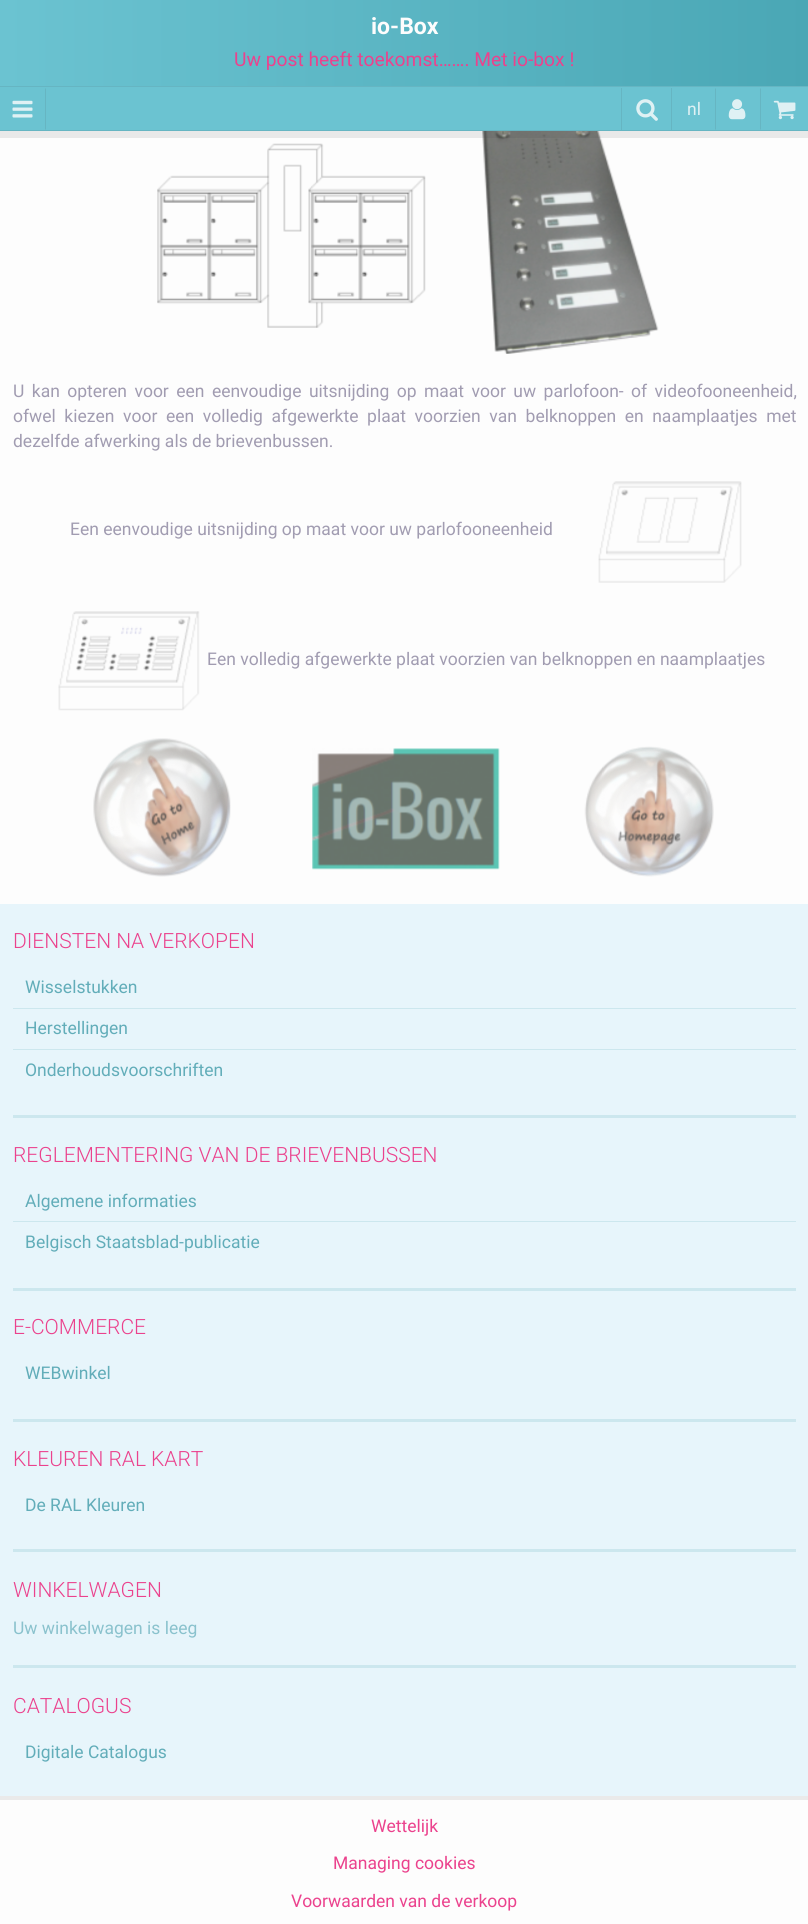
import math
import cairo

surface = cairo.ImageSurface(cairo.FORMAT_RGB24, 808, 1924)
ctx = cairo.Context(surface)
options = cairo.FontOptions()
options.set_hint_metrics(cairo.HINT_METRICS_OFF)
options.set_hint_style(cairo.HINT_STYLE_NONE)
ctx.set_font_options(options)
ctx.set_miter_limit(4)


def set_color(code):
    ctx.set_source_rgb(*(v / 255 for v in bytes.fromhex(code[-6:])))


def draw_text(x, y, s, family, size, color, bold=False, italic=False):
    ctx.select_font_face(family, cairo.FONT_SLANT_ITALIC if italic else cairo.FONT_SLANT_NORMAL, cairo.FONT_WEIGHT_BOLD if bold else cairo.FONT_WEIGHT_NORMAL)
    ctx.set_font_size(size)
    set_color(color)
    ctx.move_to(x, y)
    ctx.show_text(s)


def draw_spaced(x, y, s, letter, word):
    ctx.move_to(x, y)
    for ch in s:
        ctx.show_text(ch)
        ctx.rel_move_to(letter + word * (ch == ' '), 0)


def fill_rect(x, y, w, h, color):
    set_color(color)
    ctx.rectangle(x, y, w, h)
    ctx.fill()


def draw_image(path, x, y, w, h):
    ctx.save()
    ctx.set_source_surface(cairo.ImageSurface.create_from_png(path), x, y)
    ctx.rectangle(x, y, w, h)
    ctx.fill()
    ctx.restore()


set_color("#fdfdfd")
ctx.paint()
draw_image("assets/img6.png", 482, 131, 177, 223)
ctx.set_source_rgba(0.224, 0.224, 0.224, 0.1)
ctx.new_path()
ctx.move_to(0, 131)
ctx.line_to(0, 138)
ctx.line_to(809, 138)
ctx.line_to(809, 6)
ctx.line_to(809, 131)
ctx.close_path()
ctx.fill()
gradient = cairo.LinearGradient(0, 66, 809, 66)
gradient.add_color_stop_rgba(0, 0.42, 0.765, 0.82, 1)
gradient.add_color_stop_rgba(1, 0.29, 0.655, 0.71, 1)
ctx.set_source(gradient)
ctx.rectangle(0, 0, 808, 86)
ctx.fill()
draw_text(371, 34, "io-Box", "Roboto", 23, "#fdfdfd", bold=True)
draw_text(234, 66, "Uw post heeft toekomst……. Met io-box !", "Roboto", 19.25, "#eb428d")
fill_rect(0, 87, 808, 43, "#6bc3d1")
fill_rect(0, 86, 808, 1, "#66b5c2")
fill_rect(0, 130, 808, 1, "#66b5c2")
ctx.new_path()
ctx.move_to(46, 88)
ctx.line_to(46, 130)
ctx.line_to(45, 129)
ctx.line_to(45, 89)
ctx.close_path()
ctx.fill()
draw_image("assets/img1.png", 12, 100, 21, 18)
fill_rect(621, 88, 1, 42, "#66b5c2")
draw_image("assets/img2.png", 636, 99, 22, 22)
fill_rect(671, 88, 1, 42, "#66b5c2")
draw_text(687, 115, "nl", "Roboto", 17.5, "#e0f1f4")
set_color("#66b5c2")
ctx.new_path()
ctx.move_to(715, 130)
ctx.line_to(715, 88)
ctx.line_to(716, 89)
ctx.line_to(716, 129)
ctx.close_path()
ctx.fill()
draw_image("assets/img3.png", 728, 99, 18, 21)
ctx.new_path()
ctx.move_to(760, 130)
ctx.line_to(760, 88)
ctx.line_to(761, 89)
ctx.line_to(761, 129)
ctx.close_path()
ctx.fill()
draw_image("assets/img4.png", 773, 100, 23, 20)
draw_image("assets/img5.png", 157, 143, 269, 185)
set_color("#a19cb1")
draw_spaced(13, 397, "U kan opteren voor een eenvoudige uitsnijding op maat voor uw parlofoon- of videofooneenheid,", 0, 3.1)
draw_spaced(13, 422, "ofwel kiezen voor een volledig afgewerkte plaat voorzien van belknoppen en naamplaatjes met", 0, 4.25)
draw_text(13, 447, "dezelfde afwerking als de brievenbussen.", "Roboto", 17.5, "#a19cb1")
draw_text(70, 535, "Een eenvoudige uitsnijding op maat voor uw parlofooneenheid", "Roboto", 17.5, "#a19cb1")
draw_image("assets/img7.png", 598, 481, 144, 102)
draw_image("assets/img8.png", 58, 611, 142, 100)
draw_text(207, 665, "Een volledig afgewerkte plaat voorzien van belknoppen en naamplaatjes", "Roboto", 17.5, "#a19cb1")
draw_image("assets/img9.png", 93, 738, 138, 139)
draw_image("assets/img10.png", 312, 748, 188, 122)
draw_image("assets/img11.png", 584, 746, 130, 131)
fill_rect(0, 904, 808, 892, "#e7f5fb")
draw_text(13, 948, "DIENSTEN NA VERKOPEN", "Roboto Light", 21, "#eb428d")
fill_rect(13, 1008, 783, 1, "#cce7ee")
draw_text(25, 993, "Wisselstukken", "Roboto", 17.5, "#62adb9")
fill_rect(13, 1049, 783, 1, "#cce7ee")
draw_text(25, 1034, "Herstellingen", "Roboto", 17.5, "#62adb9")
draw_text(25, 1076, "Onderhoudsvoorschriften", "Roboto", 17.5, "#62adb9")
fill_rect(13, 1115, 783, 3, "#cce7ee")
draw_text(13, 1162, "REGLEMENTERING VAN DE BRIEVENBUSSEN", "Roboto Light", 21, "#eb428d")
fill_rect(13, 1221, 783, 1, "#cce7ee")
draw_text(25, 1207, "Algemene informaties", "Roboto", 17.5, "#62adb9")
draw_text(25, 1248, "Belgisch Staatsblad-publicatie", "Roboto", 17.5, "#62adb9")
fill_rect(13, 1288, 783, 3, "#cce7ee")
draw_text(13, 1334, "E-COMMERCE", "Roboto Light", 21, "#eb428d")
draw_text(25, 1379, "WEBwinkel", "Roboto", 17.5, "#62adb9")
fill_rect(13, 1419, 783, 3, "#cce7ee")
draw_text(13, 1466, "KLEUREN RAL KART", "Roboto Light", 21, "#eb428d")
draw_text(25, 1511, "De RAL Kleuren", "Roboto", 17.5, "#62adb9")
fill_rect(13, 1549, 783, 3, "#cce7ee")
draw_text(13, 1597, "WINKELWAGEN", "Roboto Light", 21, "#eb428d")
draw_text(13, 1634, "Uw winkelwagen is leeg", "Roboto", 17.5, "#8ac2cd")
fill_rect(13, 1665, 783, 3, "#cce7ee")
draw_text(13, 1713, "CATALOGUS", "Roboto Light", 21, "#eb428d")
draw_text(25, 1758, "Digitale Catalogus", "Roboto", 17.5, "#62adb9")
fill_rect(0, 1796, 808, 4, "#eaeaea")
draw_text(371, 1832, "Wettelijk", "Roboto", 17.5, "#eb428d")
draw_text(333, 1869, "Managing cookies", "Roboto", 17.5, "#eb428d")
draw_text(291, 1907, "Voorwaarden van de verkoop", "Roboto", 17.5, "#eb428d")
surface.write_to_png("output.png")
